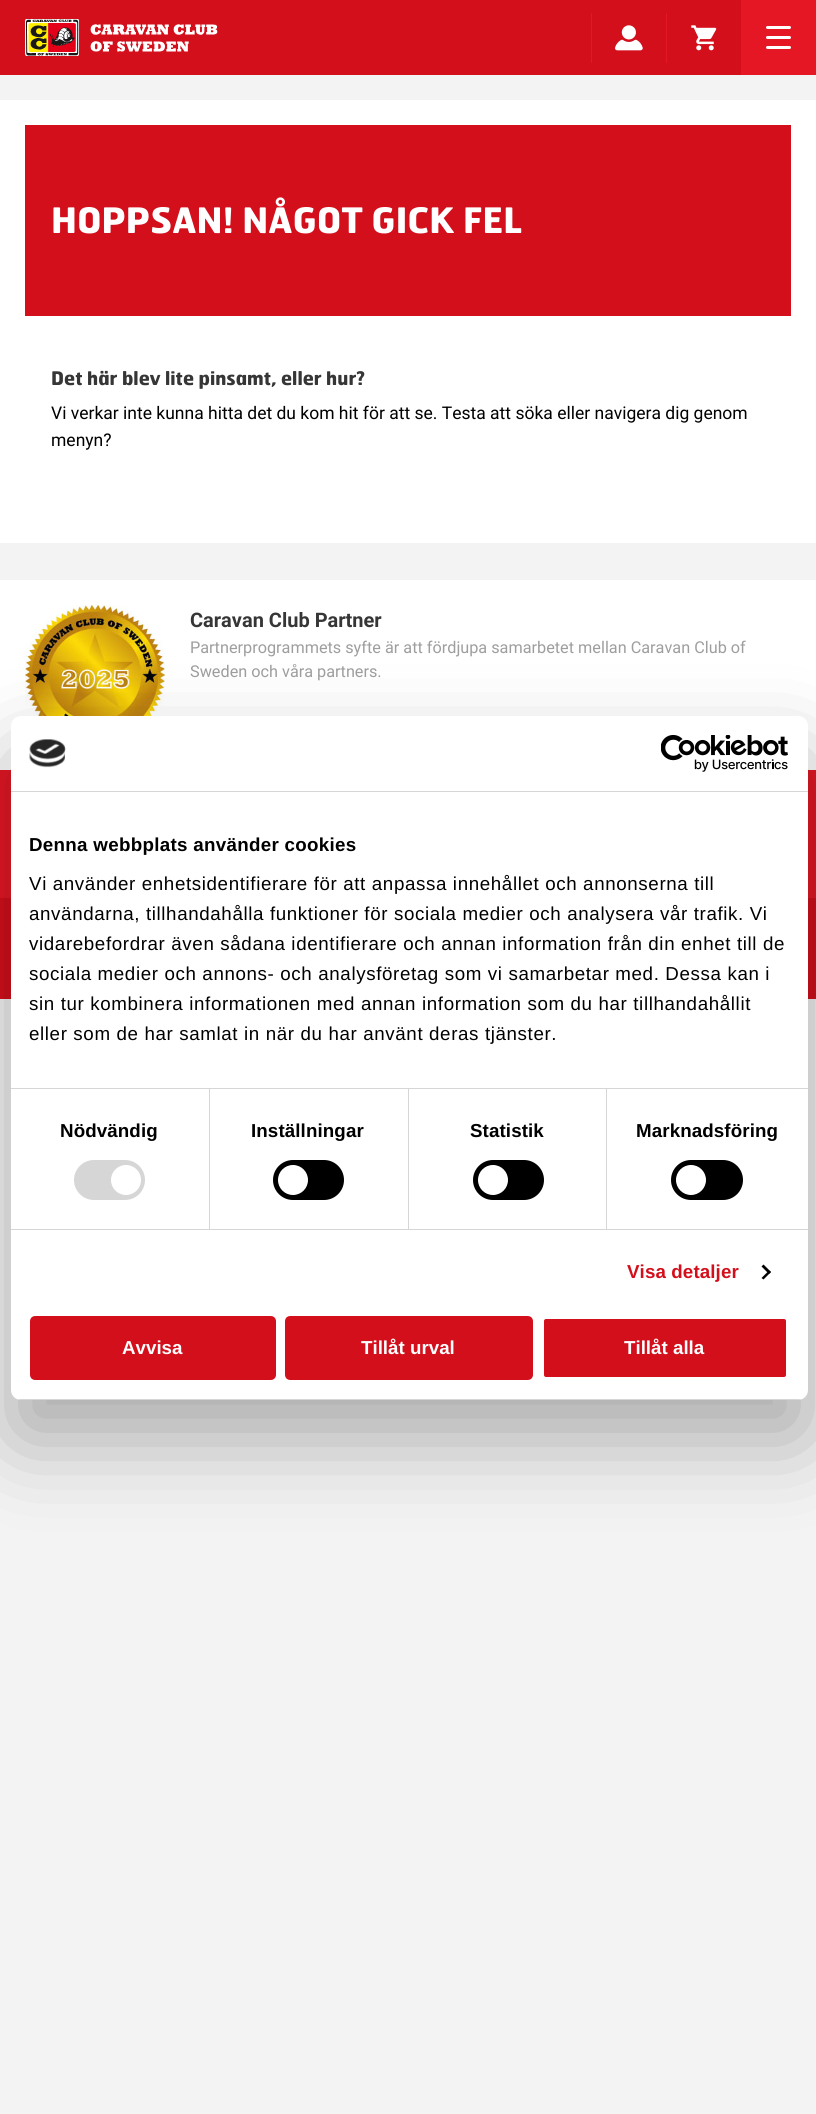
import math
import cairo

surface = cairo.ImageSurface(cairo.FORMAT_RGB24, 816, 2114)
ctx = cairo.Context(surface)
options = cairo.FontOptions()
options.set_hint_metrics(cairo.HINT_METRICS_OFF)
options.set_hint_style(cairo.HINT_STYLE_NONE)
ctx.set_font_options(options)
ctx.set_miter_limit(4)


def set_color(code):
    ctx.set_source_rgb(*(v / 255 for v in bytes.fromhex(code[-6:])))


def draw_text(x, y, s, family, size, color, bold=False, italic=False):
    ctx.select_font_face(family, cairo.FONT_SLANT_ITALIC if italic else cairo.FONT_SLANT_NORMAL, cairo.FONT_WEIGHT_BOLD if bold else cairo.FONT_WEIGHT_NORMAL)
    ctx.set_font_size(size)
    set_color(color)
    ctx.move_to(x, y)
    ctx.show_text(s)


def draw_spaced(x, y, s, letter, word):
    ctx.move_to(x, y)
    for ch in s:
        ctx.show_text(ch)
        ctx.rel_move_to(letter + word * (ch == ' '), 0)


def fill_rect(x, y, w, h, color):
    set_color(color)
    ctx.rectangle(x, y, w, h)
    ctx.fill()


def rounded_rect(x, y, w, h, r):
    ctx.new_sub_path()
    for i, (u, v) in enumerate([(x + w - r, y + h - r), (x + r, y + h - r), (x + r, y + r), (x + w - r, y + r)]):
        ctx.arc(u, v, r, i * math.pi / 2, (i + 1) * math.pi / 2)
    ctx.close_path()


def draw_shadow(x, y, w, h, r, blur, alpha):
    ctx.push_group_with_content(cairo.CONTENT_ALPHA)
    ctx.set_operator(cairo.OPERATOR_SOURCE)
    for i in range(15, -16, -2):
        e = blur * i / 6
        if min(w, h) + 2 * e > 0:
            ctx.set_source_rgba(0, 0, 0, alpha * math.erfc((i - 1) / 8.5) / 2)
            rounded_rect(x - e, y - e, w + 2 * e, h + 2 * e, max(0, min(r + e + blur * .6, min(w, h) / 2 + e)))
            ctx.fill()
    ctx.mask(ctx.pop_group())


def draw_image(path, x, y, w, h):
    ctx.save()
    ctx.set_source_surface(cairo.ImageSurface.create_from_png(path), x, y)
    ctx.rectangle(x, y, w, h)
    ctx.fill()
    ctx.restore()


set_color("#f3f3f3")
ctx.paint()
fill_rect(0, 0, 741, 75, "#d30f1c")
draw_image("assets/img1.png", 25, 19, 193, 37)
fill_rect(591, 13, 1, 50, "#e51725")
draw_image("assets/img2.png", 615, 25, 28, 26)
fill_rect(666, 13, 1, 50, "#e51725")
draw_image("assets/img3.png", 691, 25, 26, 26)
fill_rect(741, 0, 75, 75, "#e51725")
set_color("#ffffff")
rounded_rect(766, 26, 25, 3, 1.5)
ctx.fill()
rounded_rect(766, 36, 25, 3, 1.5)
ctx.fill()
rounded_rect(766, 46, 25, 3, 1.5)
ctx.fill()
fill_rect(0, 100, 816, 443, "#ffffff")
fill_rect(25, 125, 766, 191, "#d30f1c")
draw_text(51, 233, "HOPPSAN! NÅGOT GICK FEL", "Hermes", 35, "#ffffff", bold=True)
draw_text(51, 385, "Det här blev lite pinsamt, eller hur?", "Hermes", 18.75, "#363636", bold=True)
draw_text(51, 419, "Vi verkar inte kunna hitta det du kom hit för att se. Testa att söka eller navigera dig genom", "Roboto", 17.5, "#000000")
draw_text(51, 446, "menyn?", "Roboto", 17.5, "#000000")
fill_rect(0, 580, 816, 190, "#ffffff")
draw_image("assets/img4.png", 25, 605, 140, 111)
draw_text(190, 627, "Caravan Club Partner", "Roboto", 20, "#363636", bold=True)
draw_text(190, 653, "Partnerprogrammets syfte är att fördjupa samarbetet mellan Caravan Club of", "Roboto", 16.25, "#9e9e9e")
draw_text(190, 677, "Sweden och våra partners.", "Roboto", 16.25, "#9e9e9e")
fill_rect(0, 770, 816, 128, "#e51725")
fill_rect(0, 898, 816, 101, "#d30f1c")
set_color("#000000")
draw_shadow(11, 756, 797, 684, 10, 42.5, 0.3)
set_color("#ffffff")
rounded_rect(11, 716, 797, 684, 10)
ctx.fill()
fill_rect(11, 791, 797, 1, "#d6d6d6")
draw_image("assets/img5.png", 29, 739, 37, 29)
draw_image("assets/img6.png", 661, 735, 127, 37)
fill_rect(11, 1088, 797, 1, "#d6d6d6")
ctx.select_font_face("Liberation Sans", cairo.FONT_SLANT_NORMAL, cairo.FONT_WEIGHT_BOLD)
ctx.set_font_size(18.75)
set_color("#000000")
draw_spaced(29, 851, "Denna webbplats använder cookies", 0.3, 0)
ctx.select_font_face("Liberation Sans")
draw_spaced(29, 890, "Vi använder enhetsidentifierare för att anpassa innehållet och annonserna till", 0.62, 0)
draw_spaced(29, 920, "användarna, tillhandahålla funktioner för sociala medier och analysera vår trafik. Vi", 0.62, 0)
draw_spaced(29, 950, "vidarebefordrar även sådana identifierare och annan information från din enhet till de", 0.62, 0)
draw_spaced(29, 980, "sociala medier och annons- och analysföretag som vi samarbetar med. Dessa kan i", 0.62, 0)
draw_spaced(29, 1010, "sin tur kombinera informationen med annan information som du har tillhandahållit", 0.62, 0)
draw_spaced(29, 1040, "eller som de har samlat in när du har använt deras tjänster.", 0.62, 0)
fill_rect(11, 1229, 797, 1, "#d6d6d6")
fill_rect(209, 1089, 1, 140, "#d6d6d6")
ctx.select_font_face("Liberation Sans", cairo.FONT_SLANT_NORMAL, cairo.FONT_WEIGHT_BOLD)
set_color("#000000")
draw_spaced(60, 1137, "Nödvändig", 0.1, 0)
set_color("#d6d6d6")
rounded_rect(74, 1160, 71, 40, 20)
ctx.fill()
set_color("#ffffff")
ctx.arc(126, 1180, 15, 0, 2 * math.pi)
ctx.fill()
fill_rect(408, 1089, 1, 140, "#d6d6d6")
set_color("#000000")
draw_spaced(251, 1137, "Inställningar", 0.1, 0)
rounded_rect(273, 1160, 71, 40, 20)
ctx.fill()
set_color("#ffffff")
ctx.arc(293, 1180, 15, 0, 2 * math.pi)
ctx.fill()
fill_rect(606, 1089, 1, 140, "#d6d6d6")
set_color("#000000")
draw_spaced(470, 1137, "Statistik", 0.1, 0)
rounded_rect(473, 1160, 71, 40, 20)
ctx.fill()
set_color("#ffffff")
ctx.arc(493, 1180, 15, 0, 2 * math.pi)
ctx.fill()
set_color("#000000")
draw_spaced(636, 1137, "Marknadsföring", 0.1, 0)
rounded_rect(671, 1160, 72, 40, 20)
ctx.fill()
set_color("#ffffff")
ctx.arc(691, 1180, 15, 0, 2 * math.pi)
ctx.fill()
set_color("#d30f1c")
draw_spaced(627, 1278, "Visa detaljer", 0.1, 0)
set_color("#000000")
ctx.new_path()
ctx.move_to(763.5, 1264.5)
ctx.line_to(771, 1272)
ctx.line_to(769, 1274)
ctx.line_to(761.5, 1266.5)
ctx.close_path()
ctx.fill()
ctx.new_path()
ctx.move_to(769, 1270.5)
ctx.line_to(771, 1272)
ctx.line_to(763.5, 1279.5)
ctx.line_to(761.5, 1278)
ctx.close_path()
ctx.fill()
ctx.save()
rounded_rect(11, 716, 797, 684, 10)
ctx.clip()
fill_rect(11, 1399, 797, 1, "#d6d6d6")
ctx.restore()
set_color("#d30f1c")
rounded_rect(31.5, 1317.5, 243, 61, 3.5)
ctx.fill_preserve()
ctx.set_line_width(3)
ctx.stroke()
draw_text(122, 1354, "Avvisa", "Liberation Sans", 18.75, "#ffffff", bold=True)
set_color("#d30f1c")
rounded_rect(286.5, 1317.5, 245, 61, 3.5)
ctx.fill_preserve()
ctx.stroke()
draw_text(361, 1354, "Tillåt urval", "Liberation Sans", 18.75, "#ffffff", bold=True)
set_color("#d30f1c")
rounded_rect(542.5, 1317.5, 245, 61, 3.5)
ctx.fill_preserve()
set_color("#ffffff")
ctx.stroke()
draw_text(624, 1354, "Tillåt alla", "Liberation Sans", 18.75, "#ffffff", bold=True)
surface.write_to_png("output.png")
